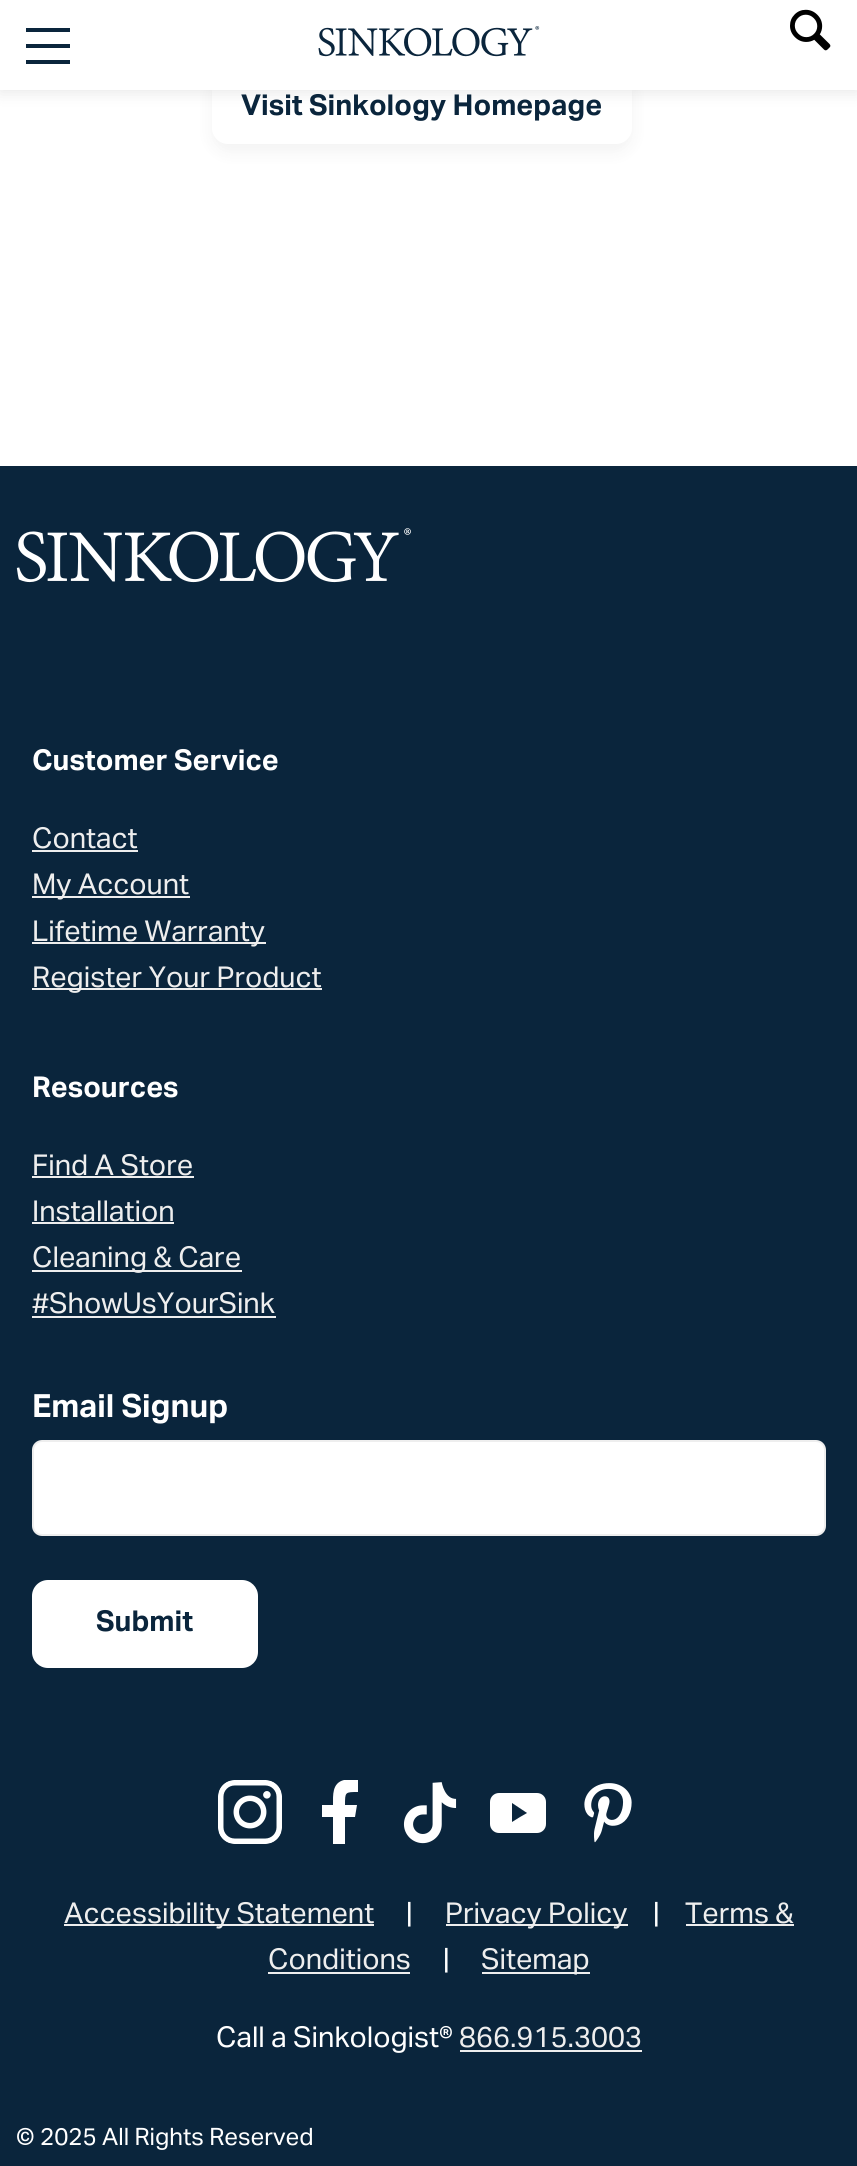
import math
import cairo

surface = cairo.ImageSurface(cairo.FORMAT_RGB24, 857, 2166)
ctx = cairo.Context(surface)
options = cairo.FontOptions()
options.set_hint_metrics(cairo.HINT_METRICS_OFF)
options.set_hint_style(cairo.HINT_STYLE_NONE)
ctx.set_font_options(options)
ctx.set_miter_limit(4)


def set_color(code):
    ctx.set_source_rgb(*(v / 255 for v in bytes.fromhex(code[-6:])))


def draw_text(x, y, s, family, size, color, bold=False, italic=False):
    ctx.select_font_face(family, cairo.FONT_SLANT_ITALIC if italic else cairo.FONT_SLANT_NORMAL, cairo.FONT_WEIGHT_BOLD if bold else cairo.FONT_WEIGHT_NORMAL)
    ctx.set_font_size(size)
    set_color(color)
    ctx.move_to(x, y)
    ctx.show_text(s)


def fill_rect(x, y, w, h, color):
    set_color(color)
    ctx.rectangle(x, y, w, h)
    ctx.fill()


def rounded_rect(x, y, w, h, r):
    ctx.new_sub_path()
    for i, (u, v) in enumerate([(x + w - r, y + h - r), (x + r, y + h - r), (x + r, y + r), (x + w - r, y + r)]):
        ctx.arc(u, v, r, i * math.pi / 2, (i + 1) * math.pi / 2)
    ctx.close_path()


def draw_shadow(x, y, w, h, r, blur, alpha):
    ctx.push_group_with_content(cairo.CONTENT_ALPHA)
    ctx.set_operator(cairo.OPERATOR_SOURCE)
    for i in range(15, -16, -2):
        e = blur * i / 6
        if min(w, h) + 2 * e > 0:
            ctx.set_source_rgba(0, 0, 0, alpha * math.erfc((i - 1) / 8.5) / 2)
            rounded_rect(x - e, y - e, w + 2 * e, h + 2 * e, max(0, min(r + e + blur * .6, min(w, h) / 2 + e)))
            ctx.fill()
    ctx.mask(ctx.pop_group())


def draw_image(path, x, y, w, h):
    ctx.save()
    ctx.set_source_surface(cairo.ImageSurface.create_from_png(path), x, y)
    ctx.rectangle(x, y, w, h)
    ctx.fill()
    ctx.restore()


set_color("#ffffff")
ctx.paint()
set_color("#000000")
draw_shadow(212, 76, 420, 76, 16, 8, 0.05)
set_color("#ffffff")
rounded_rect(212, 68, 420, 76, 16)
ctx.fill()
set_color("#000000")
draw_shadow(0, 2, 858, 90, 0, 8, 0.1)
fill_rect(0, 0, 857, 90, "#ffffff")
fill_rect(26, 28, 44, 4, "#0a253c")
fill_rect(26, 44, 44, 4, "#0a253c")
fill_rect(26, 60, 44, 4, "#0a253c")
draw_image("assets/img1.png", 318, 26, 222, 31)
draw_image("assets/img2.png", 790, 9, 41, 42)
draw_text(241, 115, "Visit Sinkology Homepage", "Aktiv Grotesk", 28.75, "#0a253c", bold=True)
fill_rect(0, 466, 857, 1700, "#0a253c")
draw_image("assets/img3.png", 16, 528, 395, 55)
draw_text(32, 770, "Customer Service", "Aktiv Grotesk", 28.75, "#ffffff", bold=True)
draw_text(32, 848, "Contact", "Aktiv Grotesk", 28.75, "#eeeeee")
fill_rect(32, 850, 106, 2, "#eeeeee")
fill_rect(32, 896, 158, 2, "#eeeeee")
draw_text(32, 894, "My Account", "Aktiv Grotesk", 28.75, "#eeeeee")
fill_rect(32, 942, 234, 2, "#eeeeee")
draw_text(32, 941, "Lifetime Warranty", "Aktiv Grotesk", 28.75, "#eeeeee")
fill_rect(32, 988, 290, 2, "#eeeeee")
draw_text(32, 987, "Register Your Product", "Aktiv Grotesk", 28.75, "#eeeeee")
draw_text(32, 1097, "Resources", "Aktiv Grotesk", 28.75, "#ffffff", bold=True)
draw_text(32, 1175, "Find A Store", "Aktiv Grotesk", 28.75, "#eeeeee")
fill_rect(32, 1176, 162, 2, "#eeeeee")
draw_text(32, 1221, "Installation", "Aktiv Grotesk", 28.75, "#eeeeee")
fill_rect(32, 1222, 142, 2, "#eeeeee")
fill_rect(32, 1270, 210, 2, "#eeeeee")
draw_text(32, 1267, "Cleaning & Care", "Aktiv Grotesk", 28.75, "#eeeeee")
draw_text(32, 1313, "#ShowUsYourSink", "Aktiv Grotesk", 28.75, "#eeeeee")
fill_rect(32, 1316, 244, 2, "#eeeeee")
draw_text(32, 1417, "Email Signup", "Aktiv Grotesk", 32, "#ffffff", bold=True)
rounded_rect(33, 1441, 792, 94, 9)
ctx.fill_preserve()
set_color("#eeeeee")
ctx.stroke()
set_color("#ffffff")
rounded_rect(32, 1580, 226, 88, 16)
ctx.fill()
draw_text(96, 1631, "Submit", "Aktiv Grotesk", 28.75, "#0a253c", bold=True)
draw_image("assets/img4.png", 218, 1780, 64, 64)
set_color("#ffffff")
ctx.new_path()
ctx.move_to(358, 1792)
ctx.curve_to(345, 1792, 345, 1792, 345, 1805)
ctx.line_to(357, 1805)
ctx.line_to(355, 1817)
ctx.line_to(345, 1817)
ctx.line_to(345, 1844)
ctx.line_to(333, 1844)
ctx.line_to(333, 1817)
ctx.line_to(322, 1817)
ctx.line_to(322, 1805)
ctx.line_to(333, 1805)
ctx.curve_to(333, 1795, 332, 1783, 344, 1780)
ctx.line_to(358, 1780)
ctx.close_path()
ctx.fill()
draw_image("assets/img5.png", 403, 1782, 54, 62)
ctx.new_path()
ctx.move_to(520, 1817)
ctx.line_to(512, 1822)
ctx.line_to(512, 1803)
ctx.line_to(527, 1813)
ctx.close_path()
ctx.move_to(537, 1793)
ctx.line_to(499, 1793)
ctx.curve_to(494, 1793, 490, 1797, 490, 1802)
ctx.line_to(490, 1824)
ctx.curve_to(490, 1829, 494, 1833, 499, 1833)
ctx.line_to(537, 1833)
ctx.curve_to(542, 1833, 546, 1829, 546, 1824)
ctx.line_to(546, 1802)
ctx.curve_to(546, 1797, 542, 1793, 537, 1793)
ctx.close_path()
ctx.fill()
draw_image("assets/img6.png", 584, 1783, 48, 60)
fill_rect(64, 1924, 310, 2, "#eeeeee")
draw_text(64, 1923, "Accessibility Statement", "Aktiv Grotesk", 28.75, "#eeeeee")
draw_text(406, 1923, "|", "Aktiv Grotesk", 28.75, "#ffffff")
fill_rect(446, 1924, 182, 2, "#eeeeee")
draw_text(445, 1923, "Privacy Policy", "Aktiv Grotesk", 28.75, "#eeeeee")
draw_text(653, 1923, "|", "Aktiv Grotesk", 28.75, "#ffffff")
draw_text(685, 1923, "Terms &", "Aktiv Grotesk", 28.75, "#eeeeee")
fill_rect(686, 1924, 108, 2, "#eeeeee")
draw_text(268, 1969, "Conditions", "Aktiv Grotesk", 28.75, "#eeeeee")
fill_rect(268, 1972, 142, 2, "#eeeeee")
draw_text(443, 1969, "|", "Aktiv Grotesk", 28.75, "#ffffff")
fill_rect(482, 1972, 108, 2, "#eeeeee")
draw_text(481, 1969, "Sitemap", "Aktiv Grotesk", 28.75, "#eeeeee")
draw_text(216, 2047, "Call a Sinkologist®", "Aktiv Grotesk", 28.75, "#ffffff")
draw_text(459, 2047, "866.915.3003", "Aktiv Grotesk", 28.75, "#eeeeee")
fill_rect(460, 2050, 182, 2, "#eeeeee")
draw_text(16, 2145, "© 2025 All Rights Reserved", "Aktiv Grotesk", 24, "#ffffff")
surface.write_to_png("output.png")
